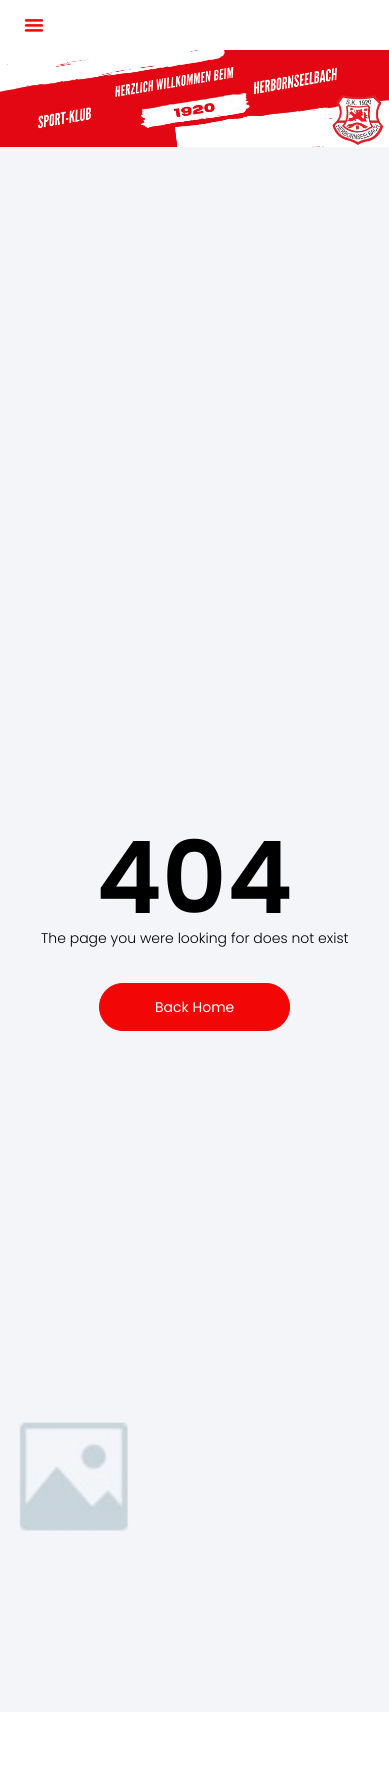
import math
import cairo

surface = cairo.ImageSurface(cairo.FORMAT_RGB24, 389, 1778)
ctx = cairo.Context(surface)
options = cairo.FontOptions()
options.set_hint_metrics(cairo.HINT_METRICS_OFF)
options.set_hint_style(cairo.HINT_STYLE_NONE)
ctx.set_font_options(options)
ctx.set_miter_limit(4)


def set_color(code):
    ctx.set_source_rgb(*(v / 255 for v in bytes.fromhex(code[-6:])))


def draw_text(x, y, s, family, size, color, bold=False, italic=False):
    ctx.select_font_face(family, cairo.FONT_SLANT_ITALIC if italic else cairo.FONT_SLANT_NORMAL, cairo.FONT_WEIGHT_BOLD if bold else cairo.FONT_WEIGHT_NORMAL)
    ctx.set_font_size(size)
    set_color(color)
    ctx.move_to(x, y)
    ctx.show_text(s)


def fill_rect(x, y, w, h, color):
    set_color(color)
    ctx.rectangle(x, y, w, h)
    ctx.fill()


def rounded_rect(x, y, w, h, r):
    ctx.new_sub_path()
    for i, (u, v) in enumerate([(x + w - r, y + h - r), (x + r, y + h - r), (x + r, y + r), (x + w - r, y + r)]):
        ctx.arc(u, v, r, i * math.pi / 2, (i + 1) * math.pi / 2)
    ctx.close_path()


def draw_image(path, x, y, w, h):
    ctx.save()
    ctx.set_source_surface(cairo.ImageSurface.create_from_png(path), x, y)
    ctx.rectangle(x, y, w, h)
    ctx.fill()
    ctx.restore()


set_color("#ffffff")
ctx.paint()
draw_image("assets/img1.png", 24, 19, 20, 13)
draw_image("assets/img2.png", 0, 50, 389, 97)
fill_rect(0, 147, 389, 1565, "#f3f5f8")
draw_image("assets/img3.png", 19, 1422, 110, 110)
draw_text(96, 913, "404", "Poppins SemiBold", 100, "#000000")
draw_text(41, 943, "The page you were looking for does not exist", "Poppins Light", 14, "#000000")
set_color("#f20606")
rounded_rect(99.5, 983.5, 190, 47, 23.5)
ctx.fill_preserve()
ctx.set_line_width(1)
ctx.stroke()
draw_text(155, 1012, "Back Home", "Poppins", 14, "#ffffff")
surface.write_to_png("output.png")
